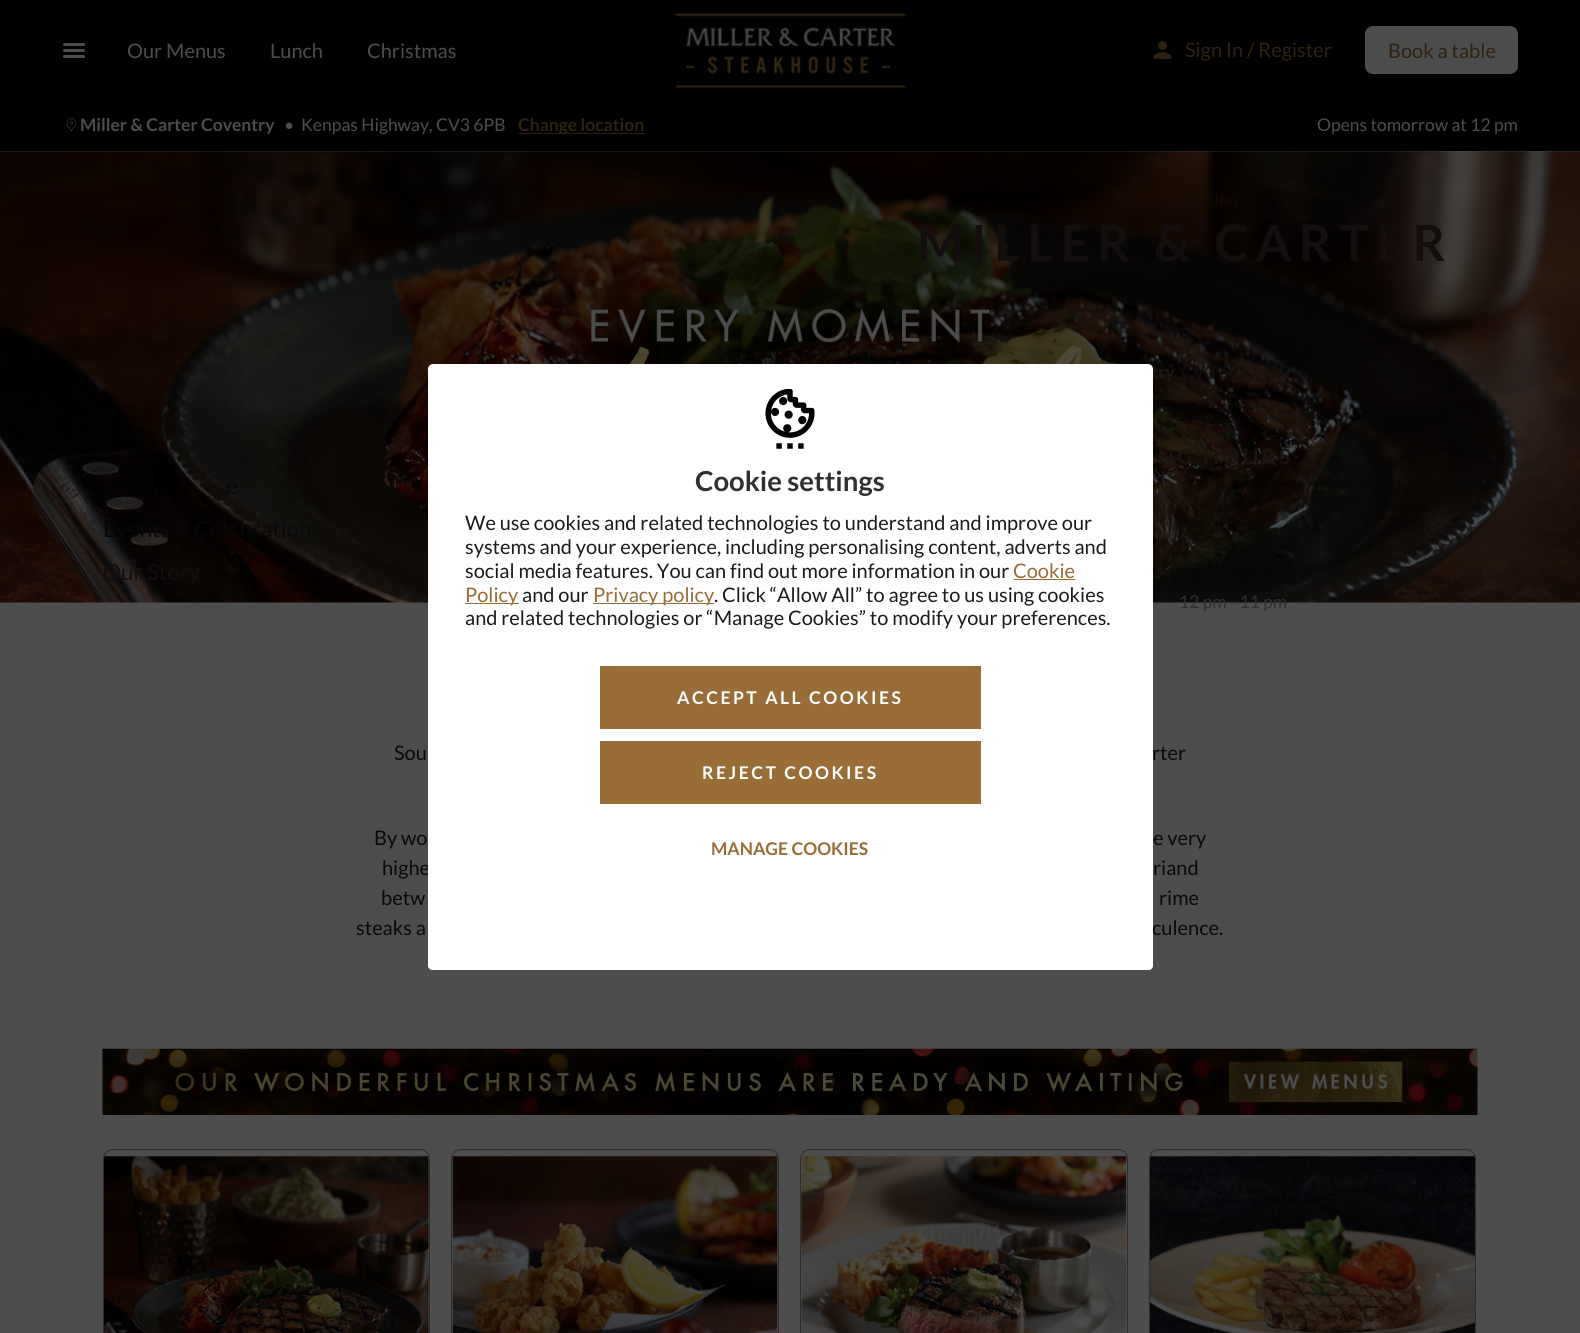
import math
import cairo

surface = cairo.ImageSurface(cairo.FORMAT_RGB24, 1580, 1333)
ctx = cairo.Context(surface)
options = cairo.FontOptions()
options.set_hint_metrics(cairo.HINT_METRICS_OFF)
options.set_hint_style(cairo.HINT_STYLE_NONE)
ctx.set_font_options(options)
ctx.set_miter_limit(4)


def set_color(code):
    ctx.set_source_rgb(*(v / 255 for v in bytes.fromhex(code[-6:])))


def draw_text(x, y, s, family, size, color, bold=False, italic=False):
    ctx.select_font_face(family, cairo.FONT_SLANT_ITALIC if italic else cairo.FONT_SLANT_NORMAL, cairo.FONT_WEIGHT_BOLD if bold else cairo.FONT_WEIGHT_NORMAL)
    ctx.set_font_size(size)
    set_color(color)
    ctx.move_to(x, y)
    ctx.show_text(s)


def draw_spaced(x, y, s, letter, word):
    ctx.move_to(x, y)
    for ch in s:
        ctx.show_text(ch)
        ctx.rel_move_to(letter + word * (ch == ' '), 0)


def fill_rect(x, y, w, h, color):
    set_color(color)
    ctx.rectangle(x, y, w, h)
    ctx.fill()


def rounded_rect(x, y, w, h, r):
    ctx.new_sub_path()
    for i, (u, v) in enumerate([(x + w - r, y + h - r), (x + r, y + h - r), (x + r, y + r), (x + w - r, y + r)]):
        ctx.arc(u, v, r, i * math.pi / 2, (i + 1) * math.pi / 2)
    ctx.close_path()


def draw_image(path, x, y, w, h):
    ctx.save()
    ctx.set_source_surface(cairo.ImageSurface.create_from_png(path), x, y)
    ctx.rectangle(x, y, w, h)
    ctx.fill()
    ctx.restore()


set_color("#4d4d4d")
ctx.paint()
fill_rect(0, 0, 1580, 151, "#000000")
draw_image("assets/img1.png", 675, 13, 232, 75)
draw_image("assets/img2.png", 1153, 41, 19, 18)
draw_text(1185, 57, "Sign In / Register", "Lato", 20, "#2e2111")
set_color("#4d4d4d")
rounded_rect(1365.5, 26.5, 152, 47, 7.5)
ctx.fill_preserve()
ctx.set_line_width(1)
ctx.stroke()
draw_text(1388, 58, "Book a table", "Lato", 20, "#2e2111")
draw_text(127, 58, "Our Menus", "Lato", 20, "#4d4d4d")
draw_text(270, 58, "Lunch", "Lato", 20, "#4d4d4d")
draw_text(367, 58, "Christmas", "Lato", 20, "#4d4d4d")
rounded_rect(63, 49, 22, 3, 1.5)
ctx.fill()
rounded_rect(63, 43, 22, 3, 1.5)
ctx.fill()
rounded_rect(63, 55, 22, 3, 1.5)
ctx.fill()
draw_image("assets/img4.png", 0, 151, 1580, 452)
draw_text(226, 494, "e", "Lato", 22.5, "#080808")
draw_text(103, 537, "Events & Celebration", "Lato", 22.5, "#080808")
draw_text(103, 580, "Our Story", "Lato", 22.5, "#130e0d")
draw_text(1208, 205, "tion", "Lato", 17.5, "#140803")
ctx.select_font_face("Lato", cairo.FONT_SLANT_NORMAL, cairo.FONT_WEIGHT_BOLD)
ctx.set_font_size(50)
set_color("#130e0d")
draw_spaced(917, 261, "MILLER & CARTER", 7.5, 0)
draw_text(1152, 378, "try", "Lato", 17.5, "#1e1a11")
draw_text(1181, 378, "CV3 6PB", "Lato", 17.5, "#130e0d")
ctx.select_font_face("Lato", cairo.FONT_SLANT_NORMAL, cairo.FONT_WEIGHT_BOLD)
ctx.set_font_size(21.25)
set_color("#1a120c")
draw_spaced(1158, 464, "NG HOURS", 3.25, 0)
draw_text(1179, 608, "12 pm - 11 pm", "Lato", 17.5, "#2f2f2e")
draw_image("assets/img3.png", 66, 118, 10, 14)
draw_text(80, 131, "Miller & Carter Coventry", "Lato", 17.5, "#4d4d4d", bold=True)
draw_text(284, 131, "•  Kenpas Highway, CV3 6PB", "Lato", 17.5, "#4d4d4d")
fill_rect(519, 133, 126, 1, "#2e2111")
draw_text(518, 131, "Change location", "Lato", 17.5, "#2e2111", bold=True)
draw_text(1317, 131, "Opens tomorrow at 12 pm", "Lato", 17.5, "#4d4d4d")
draw_text(394, 760, "Sou", "Lato", 20, "#080808")
draw_text(1152, 760, "rter", "Lato", 20, "#080808")
draw_text(374, 845, "By wo", "Lato", 20, "#080808")
draw_text(1153, 845, "e very", "Lato", 20, "#080808")
draw_text(382, 875, "highe", "Lato", 20, "#080808")
draw_text(1153, 875, "riand", "Lato", 20, "#080808")
draw_text(381, 905, "betw", "Lato", 20, "#080808")
draw_text(1159, 905, "rime", "Lato", 20, "#080808")
draw_text(356, 935, "steaks a", "Lato", 20, "#080808")
draw_text(1152, 935, "culence.", "Lato", 20, "#080808")
draw_image("assets/img5.png", 102, 1048, 1376, 67)
rounded_rect(103.5, 1149.5, 326, 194, 9.5)
set_color("#2d2d2d")
ctx.stroke()
draw_image("assets/img6.png", 103, 1156, 326, 177)
rounded_rect(451.5, 1149.5, 327, 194, 9.5)
ctx.stroke()
draw_image("assets/img7.png", 452, 1156, 326, 177)
rounded_rect(800.5, 1149.5, 327, 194, 9.5)
ctx.stroke()
draw_image("assets/img8.png", 801, 1156, 326, 177)
rounded_rect(1149.5, 1149.5, 326, 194, 9.5)
ctx.stroke()
draw_image("assets/img9.png", 1150, 1156, 325, 177)
set_color("#ffffff")
rounded_rect(428, 364, 725, 606, 5)
ctx.fill()
draw_image("assets/img10.png", 765, 389, 50, 60)
draw_text(695, 491, "Cookie settings", "Lato", 27.5, "#2f2f2e", bold=True)
draw_text(465, 530, "We use cookies and related technologies to understand and improve our", "Lato", 20, "#1c1b1c")
draw_text(465, 554, "systems and your experience, including personalising content, adverts and", "Lato", 20, "#1c1b1c")
draw_text(465, 578, "social media features. You can find out more information in our", "Lato", 20, "#1c1b1c")
draw_text(1013, 578, "Cookie", "Lato", 20, "#996d38")
fill_rect(1014, 579, 61, 1, "#996d38")
fill_rect(465, 603, 54, 1, "#996d38")
draw_text(465, 602, "Policy", "Lato", 20, "#996d38")
draw_text(522, 602, "and our", "Lato", 20, "#1c1b1c")
fill_rect(593, 603, 121, 1, "#996d38")
draw_text(593, 602, "Privacy policy", "Lato", 20, "#996d38")
draw_text(714, 602, ". Click “Allow All” to agree to us using cookies", "Lato", 20, "#1c1b1c")
draw_text(465, 625, "and related technologies or “Manage Cookies” to modify your preferences.", "Lato", 20, "#1c1b1c")
fill_rect(600, 666, 381, 63, "#996d38")
ctx.select_font_face("Lato", cairo.FONT_SLANT_NORMAL, cairo.FONT_WEIGHT_BOLD)
ctx.set_font_size(17.5)
set_color("#ffffff")
draw_spaced(677, 704, "ACCEPT ALL COOKIES", 2.5, 0)
fill_rect(600, 741, 381, 63, "#996d38")
set_color("#ffffff")
draw_spaced(702, 779, "REJECT COOKIES", 2.5, 0)
draw_text(711, 855, "MANAGE COOKIES", "Lato", 17.5, "#996d38", bold=True)
gradient = cairo.LinearGradient(790, 923, 790, 970)
gradient.add_color_stop_rgba(0, 1, 1, 1, 0)
gradient.add_color_stop_rgba(1, 1, 1, 1, 1)
ctx.set_source(gradient)
ctx.new_path()
ctx.move_to(428, 923)
ctx.line_to(1153, 923)
ctx.line_to(1153, 965)
ctx.curve_to(1153, 968, 1151, 970, 1148, 970)
ctx.line_to(433, 970)
ctx.curve_to(430, 970, 428, 968, 428, 965)
ctx.close_path()
ctx.fill()
surface.write_to_png("output.png")
